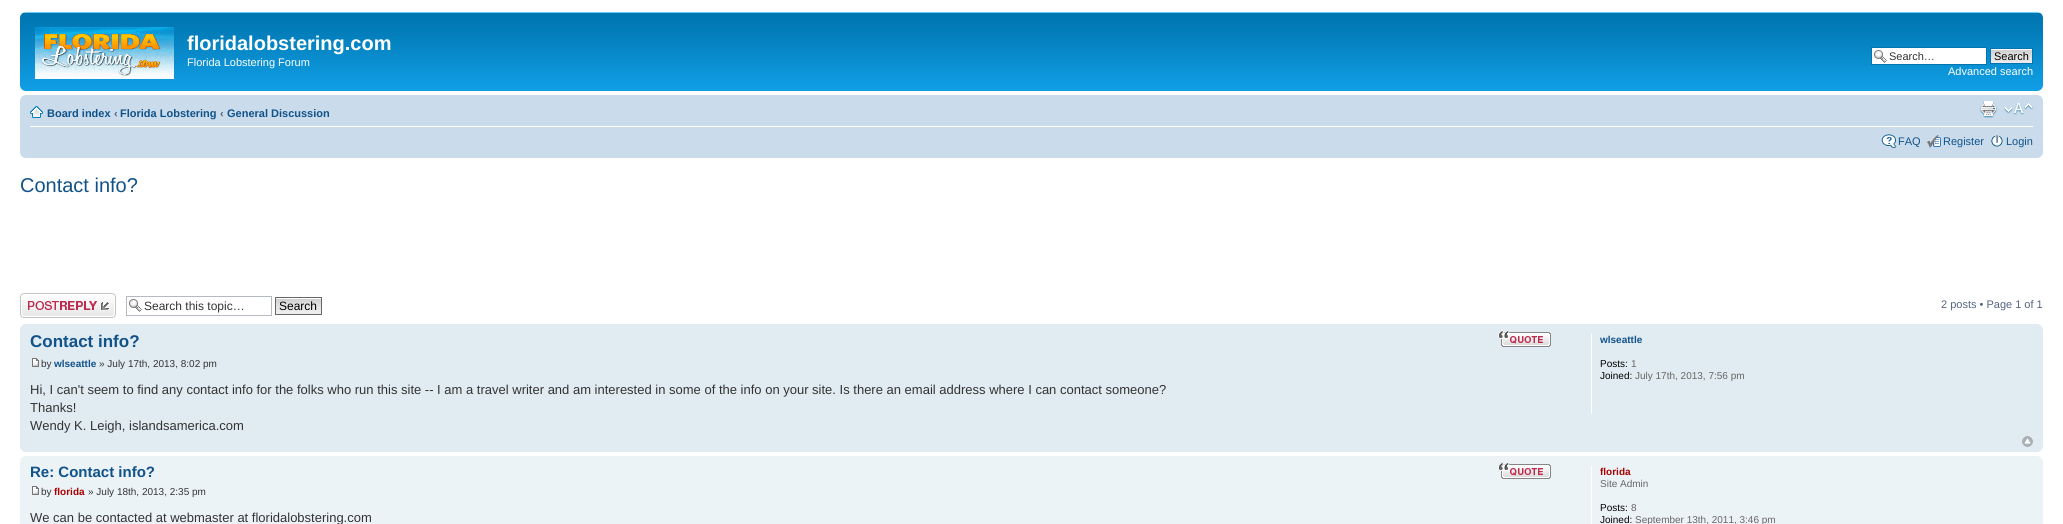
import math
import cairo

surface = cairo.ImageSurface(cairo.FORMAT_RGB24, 2063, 524)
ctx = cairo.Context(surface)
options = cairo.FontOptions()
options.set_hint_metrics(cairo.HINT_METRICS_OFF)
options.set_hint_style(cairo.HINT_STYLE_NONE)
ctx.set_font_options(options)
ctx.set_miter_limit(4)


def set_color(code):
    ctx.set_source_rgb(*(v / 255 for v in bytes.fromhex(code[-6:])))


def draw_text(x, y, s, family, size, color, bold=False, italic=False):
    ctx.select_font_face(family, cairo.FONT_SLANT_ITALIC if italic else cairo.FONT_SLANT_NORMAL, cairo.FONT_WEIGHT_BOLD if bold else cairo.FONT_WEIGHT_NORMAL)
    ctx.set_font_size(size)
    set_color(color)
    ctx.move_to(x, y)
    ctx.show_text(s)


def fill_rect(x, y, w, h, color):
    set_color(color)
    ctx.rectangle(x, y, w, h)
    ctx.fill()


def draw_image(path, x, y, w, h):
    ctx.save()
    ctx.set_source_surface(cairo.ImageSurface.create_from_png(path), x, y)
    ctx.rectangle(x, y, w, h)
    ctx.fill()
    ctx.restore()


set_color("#ffffff")
ctx.paint()
draw_image("assets/img1.png", 20, 12, 2023, 79)
draw_image("assets/img2.png", 20, 12, 5, 5)
draw_image("assets/img3.png", 2038, 12, 5, 5)
draw_image("assets/img4.png", 35, 27, 139, 52)
draw_text(187, 50, "floridalobstering.com", "Liberation Sans", 20, "#ffffff", bold=True)
draw_text(187, 66, "Florida Lobstering Forum", "Liberation Sans", 11, "#ffffff")
fill_rect(1872, 48, 114, 16, "#ffffff")
draw_image("assets/img5.png", 1874, 50, 13, 13)
ctx.rectangle(1871.5, 47.5, 115, 17)
set_color("#0075b0")
ctx.set_line_width(1)
ctx.stroke()
draw_text(1889, 60, "Search…", "Liberation Sans", 11, "#333333")
draw_image("assets/img6.png", 1991, 49, 41, 14)
ctx.rectangle(1990.5, 48.5, 42, 15)
set_color("#0075b0")
ctx.stroke()
draw_text(1994, 60, "Search", "Liberation Sans", 11, "#000000")
draw_text(1948, 75, "Advanced search", "Liberation Sans", 11, "#ffffff")
draw_image("assets/img7.png", 20, 86, 5, 5)
draw_image("assets/img8.png", 2038, 86, 5, 5)
fill_rect(20, 95, 2023, 63, "#cadceb")
draw_image("assets/img9.png", 20, 95, 5, 5)
draw_image("assets/img10.png", 2038, 95, 5, 5)
fill_rect(30, 126, 2003, 1, "#ffffff")
draw_image("assets/img11.png", 30, 106, 13, 12)
draw_text(47, 117, "Board index", "Liberation Sans", 11, "#105289", bold=True)
draw_text(114, 117, "‹", "Liberation Sans", 11, "#536482", bold=True)
draw_text(120, 117, "Florida Lobstering", "Liberation Sans", 11, "#105289", bold=True)
draw_text(220, 117, "‹", "Liberation Sans", 11, "#536482", bold=True)
draw_text(227, 117, "General Discussion", "Liberation Sans", 11, "#105289", bold=True)
draw_image("assets/img12.png", 1980, 101, 17, 17)
draw_image("assets/img13.png", 2004, 103, 29, 12)
draw_image("assets/img14.png", 1881, 134, 16, 14)
draw_text(1898, 145, "FAQ", "Liberation Sans", 11, "#105289")
draw_image("assets/img15.png", 1927, 135, 14, 13)
draw_text(1943, 145, "Register", "Liberation Sans", 11, "#105289")
draw_image("assets/img16.png", 1991, 135, 12, 12)
draw_text(2006, 145, "Login", "Liberation Sans", 11, "#105289")
draw_image("assets/img17.png", 20, 153, 5, 5)
draw_image("assets/img18.png", 2038, 153, 5, 5)
draw_text(20, 192, "Contact info?", "Liberation Sans", 20, "#105289")
draw_image("assets/img19.png", 20, 293, 96, 25)
draw_image("assets/img5.png", 129, 299, 13, 13)
ctx.rectangle(126.5, 296.5, 145, 19)
set_color("#b4bac0")
ctx.stroke()
draw_text(144, 310, "Search this topic…", "Liberation Sans", 12, "#333333")
draw_image("assets/img20.png", 276, 298, 45, 16)
ctx.rectangle(275.5, 297.5, 46, 17)
set_color("#666666")
ctx.stroke()
draw_text(279, 310, "Search", "Liberation Sans", 12, "#000000")
draw_text(1941, 308, "2 posts • Page 1 of 1", "Liberation Sans", 11, "#536482")
fill_rect(20, 324, 2023, 128, "#e1ebf2")
draw_image("assets/img21.png", 20, 324, 5, 5)
draw_image("assets/img22.png", 2038, 324, 5, 5)
draw_text(30, 347, "Contact info?", "Liberation Sans", 17, "#105289", bold=True)
draw_image("assets/img23.png", 1498, 330, 11, 9)
draw_image("assets/img24.png", 1499, 331, 52, 16)
draw_image("assets/img25.png", 32, 358, 7, 9)
draw_text(41, 367, "by", "Liberation Sans", 10, "#333333")
draw_text(54, 367, "wlseattle", "Liberation Sans", 10, "#105289", bold=True)
draw_text(99, 367, "» July 17th, 2013, 8:02 pm", "Liberation Sans", 10, "#333333")
draw_text(30, 394, "Hi, I can't seem to find any contact info for the folks who run this site -- I am a travel writer and am interested in some of the info on your site. Is there an email address where I can contact someone?", "Liberation Sans", 13, "#333333")
draw_text(30, 412, "Thanks!", "Liberation Sans", 13, "#333333")
draw_text(30, 430, "Wendy K. Leigh, islandsamerica.com", "Liberation Sans", 13, "#333333")
fill_rect(1591, 334, 1, 80, "#ffffff")
draw_text(1600, 343, "wlseattle", "Liberation Sans", 10, "#105289", bold=True)
draw_text(1600, 367, "Posts:", "Liberation Sans", 10, "#000000")
draw_text(1631, 367, "1", "Liberation Sans", 10, "#666666")
draw_text(1600, 379, "Joined:", "Liberation Sans", 10, "#000000")
draw_text(1635, 379, "July 17th, 2013, 7:56 pm", "Liberation Sans", 10, "#666666")
draw_image("assets/img26.png", 2022, 436, 11, 11)
draw_image("assets/img27.png", 20, 447, 5, 5)
draw_image("assets/img28.png", 2038, 447, 5, 5)
fill_rect(20, 456, 2023, 68, "#ecf3f7")
draw_image("assets/img29.png", 20, 456, 5, 5)
draw_image("assets/img30.png", 2038, 456, 5, 5)
draw_text(30, 477, "Re: Contact info?", "Liberation Sans", 15, "#105289", bold=True)
draw_image("assets/img31.png", 1498, 462, 11, 9)
draw_image("assets/img32.png", 1499, 463, 52, 16)
draw_image("assets/img33.png", 32, 486, 7, 9)
draw_text(41, 495, "by", "Liberation Sans", 10, "#333333")
draw_text(54, 495, "florida", "Liberation Sans", 10, "#aa0000", bold=True)
draw_text(88, 495, "» July 18th, 2013, 2:35 pm", "Liberation Sans", 10, "#333333")
draw_text(30, 522, "We can be contacted at webmaster at floridalobstering.com", "Liberation Sans", 13, "#333333")
fill_rect(1591, 466, 1, 58, "#ffffff")
draw_text(1600, 475, "florida", "Liberation Sans", 10, "#aa0000", bold=True)
draw_text(1600, 487, "Site Admin", "Liberation Sans", 10, "#666666")
draw_text(1600, 511, "Posts:", "Liberation Sans", 10, "#000000")
draw_text(1631, 511, "8", "Liberation Sans", 10, "#666666")
draw_text(1600, 523, "Joined:", "Liberation Sans", 10, "#000000")
draw_text(1635, 523, "September 13th, 2011, 3:46 pm", "Liberation Sans", 10, "#666666")
surface.write_to_png("output.png")
